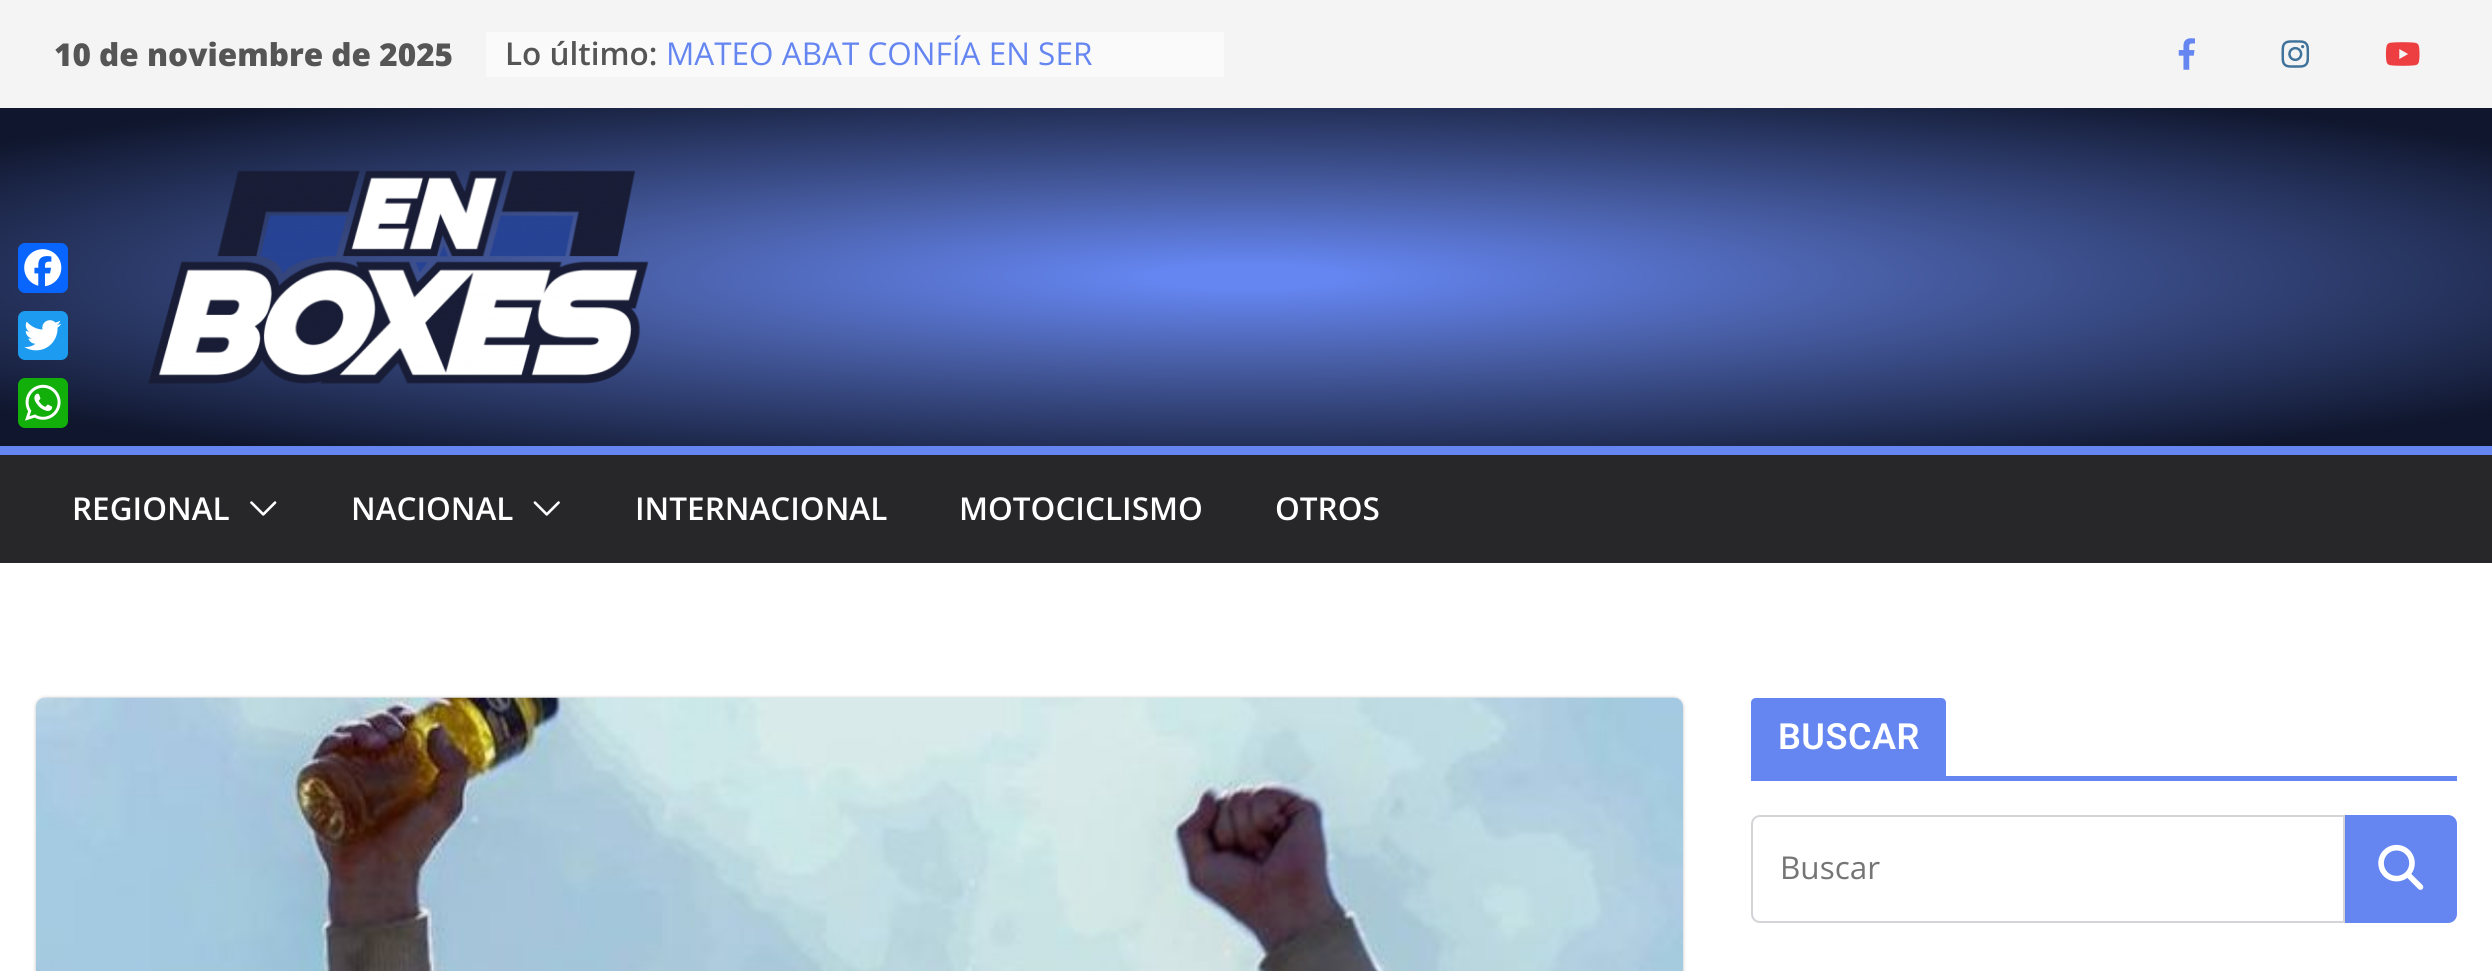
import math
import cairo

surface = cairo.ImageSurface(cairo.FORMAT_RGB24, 2492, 971)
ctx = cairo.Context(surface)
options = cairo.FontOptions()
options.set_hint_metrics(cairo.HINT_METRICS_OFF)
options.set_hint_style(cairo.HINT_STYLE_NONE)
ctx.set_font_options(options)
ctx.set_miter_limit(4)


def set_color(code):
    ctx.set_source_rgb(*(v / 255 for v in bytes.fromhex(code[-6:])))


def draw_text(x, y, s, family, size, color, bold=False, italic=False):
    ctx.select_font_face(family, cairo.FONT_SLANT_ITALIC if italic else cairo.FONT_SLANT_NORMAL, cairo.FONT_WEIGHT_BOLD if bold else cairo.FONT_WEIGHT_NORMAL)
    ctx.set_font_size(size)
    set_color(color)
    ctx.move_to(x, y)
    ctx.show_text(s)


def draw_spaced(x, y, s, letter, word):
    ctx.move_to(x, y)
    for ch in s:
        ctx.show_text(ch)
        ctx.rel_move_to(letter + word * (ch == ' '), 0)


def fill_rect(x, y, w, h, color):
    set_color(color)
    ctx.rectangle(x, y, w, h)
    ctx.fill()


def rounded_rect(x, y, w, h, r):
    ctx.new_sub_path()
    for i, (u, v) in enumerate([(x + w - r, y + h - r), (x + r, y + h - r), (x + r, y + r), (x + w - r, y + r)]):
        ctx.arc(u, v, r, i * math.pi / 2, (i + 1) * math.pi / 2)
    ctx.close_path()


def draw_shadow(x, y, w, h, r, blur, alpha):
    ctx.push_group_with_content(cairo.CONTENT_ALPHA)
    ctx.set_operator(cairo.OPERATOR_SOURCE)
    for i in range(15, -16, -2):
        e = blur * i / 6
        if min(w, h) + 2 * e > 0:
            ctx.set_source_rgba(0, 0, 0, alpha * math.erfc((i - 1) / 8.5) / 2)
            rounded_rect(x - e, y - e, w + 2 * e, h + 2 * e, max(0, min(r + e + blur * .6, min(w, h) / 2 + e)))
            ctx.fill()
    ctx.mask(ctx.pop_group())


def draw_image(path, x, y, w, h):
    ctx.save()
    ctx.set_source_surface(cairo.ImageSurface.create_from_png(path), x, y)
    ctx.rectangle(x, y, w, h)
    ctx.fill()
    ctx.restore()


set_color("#ffffff")
ctx.paint()
gradient = cairo.RadialGradient(0, 0, 0, 0, 0, 1)
gradient.set_matrix(cairo.Matrix(1 / 1763, 0, 0, 1 / 239, -1 * 1247 / 1763, -1 * 277 / 239))
gradient.add_color_stop_rgba(0.05, 0.396, 0.525, 0.945, 1)
gradient.add_color_stop_rgba(0.35, 0.286, 0.373, 0.655, 1)
gradient.add_color_stop_rgba(0.9, 0.059, 0.086, 0.176, 1)
ctx.set_source(gradient)
ctx.rectangle(0, 108, 2492, 338)
ctx.fill()
set_color("#0866ff")
rounded_rect(18, 243, 50, 50, 7)
ctx.fill()
draw_image("assets/img1.png", 24, 249, 38, 38)
set_color("#1d9bf0")
rounded_rect(18, 311, 50, 49, 7)
ctx.fill()
draw_image("assets/img2.png", 24, 320, 38, 31)
set_color("#12af0a")
rounded_rect(18, 378, 50, 50, 7)
ctx.fill()
draw_image("assets/img3.png", 25, 384, 36, 37)
fill_rect(0, 0, 2492, 108, "#f4f4f5")
draw_text(54, 66, "10 de noviembre de 2025", "Open Sans ExtraBold", 31.5, "#555555")
fill_rect(486, 32, 738, 45, "#fafafa")
draw_text(505, 65, "Lo último:", "Open Sans SemiBold", 31.5, "#555555")
draw_text(666, 65, "MATEO ABAT CONFÍA EN SER", "Open Sans", 31.5, "#6586f1")
draw_image("assets/img4.png", 2178, 38, 17, 32)
draw_image("assets/img5.png", 2281, 40, 29, 28)
draw_image("assets/img6.png", 2385, 42, 35, 24)
draw_image("assets/img7.png", 148, 170, 501, 214)
fill_rect(0, 455, 2492, 108, "#27272a")
fill_rect(0, 446, 2492, 9, "#6586f1")
draw_text(72, 520, "REGIONAL", "Open Sans SemiBold", 31.5, "#ffffff")
draw_image("assets/img8.png", 250, 501, 27, 15)
draw_text(351, 520, "NACIONAL", "Open Sans SemiBold", 31.5, "#ffffff")
draw_image("assets/img9.png", 533, 501, 27, 15)
draw_text(635, 520, "INTERNACIONAL", "Open Sans SemiBold", 31.5, "#ffffff")
draw_text(959, 520, "MOTOCICLISMO", "Open Sans SemiBold", 31.5, "#ffffff")
draw_text(1275, 520, "OTROS", "Open Sans SemiBold", 31.5, "#ffffff")
set_color("#000000")
draw_shadow(36, 698, 1647, 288, 9, 2, 0.24)
draw_image("assets/img10.png", 36, 697, 1647, 274)
fill_rect(1751, 776, 706, 5, "#6586f1")
ctx.new_path()
ctx.move_to(1756, 698)
ctx.line_to(1941, 698)
ctx.curve_to(1944, 698, 1946, 700, 1946, 703)
ctx.line_to(1946, 776)
ctx.line_to(1751, 776)
ctx.line_to(1751, 703)
ctx.curve_to(1751, 700, 1753, 698, 1756, 698)
ctx.close_path()
ctx.fill()
ctx.select_font_face("Roboto SemiBold")
ctx.set_font_size(36)
set_color("#ffffff")
draw_spaced(1778, 749, "BUSCAR", 0.5, 0)
ctx.new_path()
ctx.move_to(1760, 816)
ctx.line_to(2344, 816)
ctx.line_to(2344, 922)
ctx.line_to(1760, 922)
ctx.curve_to(1755.5, 922, 1752, 918.5, 1752, 914)
ctx.line_to(1752, 824)
ctx.curve_to(1752, 819.5, 1755.5, 816, 1760, 816)
ctx.close_path()
set_color("#d4d4d8")
ctx.stroke()
draw_text(1780, 879, "Buscar", "Open Sans", 31.5, "#757575")
set_color("#6586f1")
ctx.new_path()
ctx.move_to(2346, 816)
ctx.line_to(2448, 816)
ctx.curve_to(2452.5, 816, 2456, 819.5, 2456, 824)
ctx.line_to(2456, 914)
ctx.curve_to(2456, 918.5, 2452.5, 922, 2448, 922)
ctx.line_to(2346, 922)
ctx.close_path()
ctx.fill_preserve()
ctx.stroke()
draw_image("assets/img11.png", 2378, 844, 46, 46)
surface.write_to_png("output.png")
